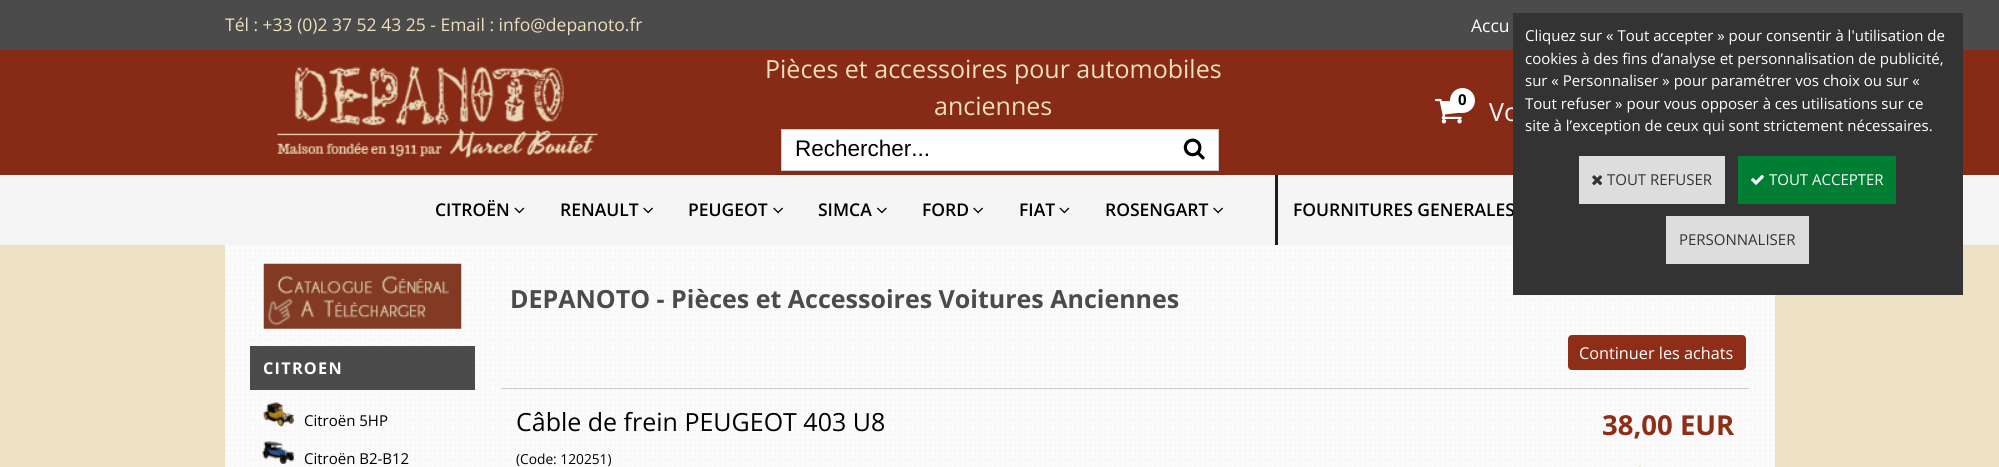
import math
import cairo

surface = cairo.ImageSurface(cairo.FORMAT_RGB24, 1999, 467)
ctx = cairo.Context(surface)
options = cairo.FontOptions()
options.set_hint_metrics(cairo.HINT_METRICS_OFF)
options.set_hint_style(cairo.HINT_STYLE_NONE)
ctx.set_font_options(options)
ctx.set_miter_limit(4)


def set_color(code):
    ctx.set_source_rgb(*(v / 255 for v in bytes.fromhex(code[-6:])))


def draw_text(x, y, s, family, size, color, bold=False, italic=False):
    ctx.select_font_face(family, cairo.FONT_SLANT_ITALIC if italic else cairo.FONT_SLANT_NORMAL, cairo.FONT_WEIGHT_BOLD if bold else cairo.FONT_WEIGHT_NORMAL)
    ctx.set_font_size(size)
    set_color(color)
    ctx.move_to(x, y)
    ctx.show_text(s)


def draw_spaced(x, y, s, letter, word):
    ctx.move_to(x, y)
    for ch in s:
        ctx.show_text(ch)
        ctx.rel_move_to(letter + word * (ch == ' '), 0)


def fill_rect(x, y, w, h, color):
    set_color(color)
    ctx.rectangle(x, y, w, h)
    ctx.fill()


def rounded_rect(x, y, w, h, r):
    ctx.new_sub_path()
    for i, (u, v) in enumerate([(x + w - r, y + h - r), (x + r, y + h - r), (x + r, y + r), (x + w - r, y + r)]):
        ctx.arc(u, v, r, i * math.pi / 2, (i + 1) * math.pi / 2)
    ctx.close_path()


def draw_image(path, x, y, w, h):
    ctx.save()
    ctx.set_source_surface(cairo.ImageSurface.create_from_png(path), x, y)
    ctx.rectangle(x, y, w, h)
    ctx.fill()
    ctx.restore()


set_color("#ece1c2")
ctx.paint()
fill_rect(0, 50, 1999, 125, "#872a16")
fill_rect(0, 175, 1999, 70, "#f5f5f5")
fill_rect(0, 0, 1999, 50, "#4b4b4b")
draw_text(225, 31, "Tél : +33 (0)2 37 52 43 25 - Email : info@depanoto.fr", "Open Sans", 17.5, "#eedfbd")
draw_text(1471, 32, "Accu", "Open Sans", 17.5, "#ffffff")
draw_image("assets/img1.png", 277, 66, 321, 93)
draw_text(765, 78, "Pièces et accessoires pour automobiles", "Open Sans", 25, "#eedfbd")
draw_text(934, 115, "anciennes", "Open Sans", 25, "#eedfbd")
draw_image("assets/img2.png", 1435, 98, 29, 26)
set_color("#ffffff")
ctx.arc(1462.5, 100.5, 12.5, 0, 2 * math.pi)
ctx.fill()
draw_text(1458, 105, "0", "Open Sans", 15, "#000000", bold=True)
draw_text(1489, 121, "Vo", "Open Sans", 25, "#ffffff")
ctx.rectangle(781.5, 129.5, 437, 41)
ctx.fill_preserve()
set_color("#cccccc")
ctx.set_line_width(1)
ctx.stroke()
draw_text(795, 156, "Rechercher...", "Liberation Sans", 22.5, "#000000")
draw_image("assets/img3.png", 1183, 138, 22, 22)
draw_text(435, 216, "CITROËN", "Open Sans SemiBold", 17.5, "#000000")
draw_image("assets/img4.png", 514, 207, 11, 7)
draw_text(560, 216, "RENAULT", "Open Sans SemiBold", 17.5, "#000000")
draw_image("assets/img5.png", 643, 207, 10, 7)
draw_text(688, 216, "PEUGEOT", "Open Sans SemiBold", 17.5, "#000000")
draw_image("assets/img5.png", 773, 207, 10, 7)
draw_text(818, 216, "SIMCA", "Open Sans SemiBold", 17.5, "#000000")
draw_image("assets/img6.png", 877, 207, 10, 7)
draw_text(922, 216, "FORD", "Open Sans SemiBold", 17.5, "#000000")
draw_image("assets/img5.png", 973, 207, 10, 7)
draw_text(1019, 216, "FIAT", "Open Sans SemiBold", 17.5, "#000000")
draw_image("assets/img4.png", 1059, 207, 11, 7)
draw_text(1105, 216, "ROSENGART", "Open Sans SemiBold", 17.5, "#000000")
draw_image("assets/img5.png", 1213, 207, 10, 7)
fill_rect(1275, 175, 3, 70, "#1d1d1d")
draw_text(1293, 216, "FOURNITURES GENERALES", "Open Sans SemiBold", 17.5, "#000000")
fill_rect(225, 245, 1550, 222, "#ffffff")
draw_image("assets/img9.png", 225, 245, 1550, 222)
fill_rect(1513, 13, 450, 282, "#333333")
draw_text(1525, 41, "Cliquez sur « Tout accepter » pour consentir à l'utilisation de", "Open Sans", 15, "#ffffff")
draw_text(1525, 64, "cookies à des fins d’analyse et personnalisation de publicité,", "Open Sans", 15, "#ffffff")
draw_text(1525, 86, "sur « Personnaliser » pour paramétrer vos choix ou sur «", "Open Sans", 15, "#ffffff")
draw_text(1525, 109, "Tout refuser » pour vous opposer à ces utilisations sur ce", "Open Sans", 15, "#ffffff")
draw_text(1525, 131, "site à l’exception de ceux qui sont strictement nécessaires.", "Open Sans", 15, "#ffffff")
fill_rect(1579, 156, 146, 48, "#dddddd")
draw_image("assets/img7.png", 1592, 175, 11, 11)
draw_text(1607, 185, "TOUT REFUSER", "Open Sans", 15, "#333333")
fill_rect(1738, 156, 158, 48, "#007e33")
draw_image("assets/img8.png", 1751, 175, 13, 10)
draw_text(1769, 185, "TOUT ACCEPTER", "Open Sans", 15, "#ffffff")
fill_rect(1666, 216, 143, 48, "#dddddd")
draw_text(1679, 245, "PERSONNALISER", "Open Sans", 15, "#333333")
draw_image("assets/img10.png", 263, 263, 199, 66)
fill_rect(250, 346, 225, 44, "#4b4b4b")
ctx.select_font_face("Open Sans", cairo.FONT_SLANT_NORMAL, cairo.FONT_WEIGHT_BOLD)
ctx.set_font_size(16.25)
set_color("#ffffff")
draw_spaced(263, 374, "CITROEN", 1.25, 0)
draw_image("assets/img11.png", 262, 402, 32, 25)
draw_text(304, 426, "Citroën 5HP", "Open Sans", 15, "#000000")
draw_image("assets/img12.png", 262, 441, 32, 23)
draw_text(304, 464, "Citroën B2-B12", "Open Sans", 15, "#000000")
draw_text(510, 308, "DEPANOTO - Pièces et Accessoires Voitures Anciennes", "Open Sans", 25, "#4b4b4b", bold=True)
set_color("#8e2e18")
rounded_rect(1568, 335, 178, 35, 4)
ctx.fill()
draw_text(1579, 359, "Continuer les achats", "Open Sans", 16.25, "#ffffff")
fill_rect(501, 388, 1248, 1, "#cccccc")
draw_text(516, 431, "Câble de frein PEUGEOT 403 U8", "Open Sans", 25, "#000000")
draw_text(516, 464, "(Code: 120251)", "Open Sans", 13.75, "#000000")
draw_text(1602, 435, "38,00 EUR", "Open Sans", 27.5, "#8e2e18", bold=True)
draw_image("assets/img13.png", 1639, 466, 2, 1)
surface.write_to_png("output.png")
